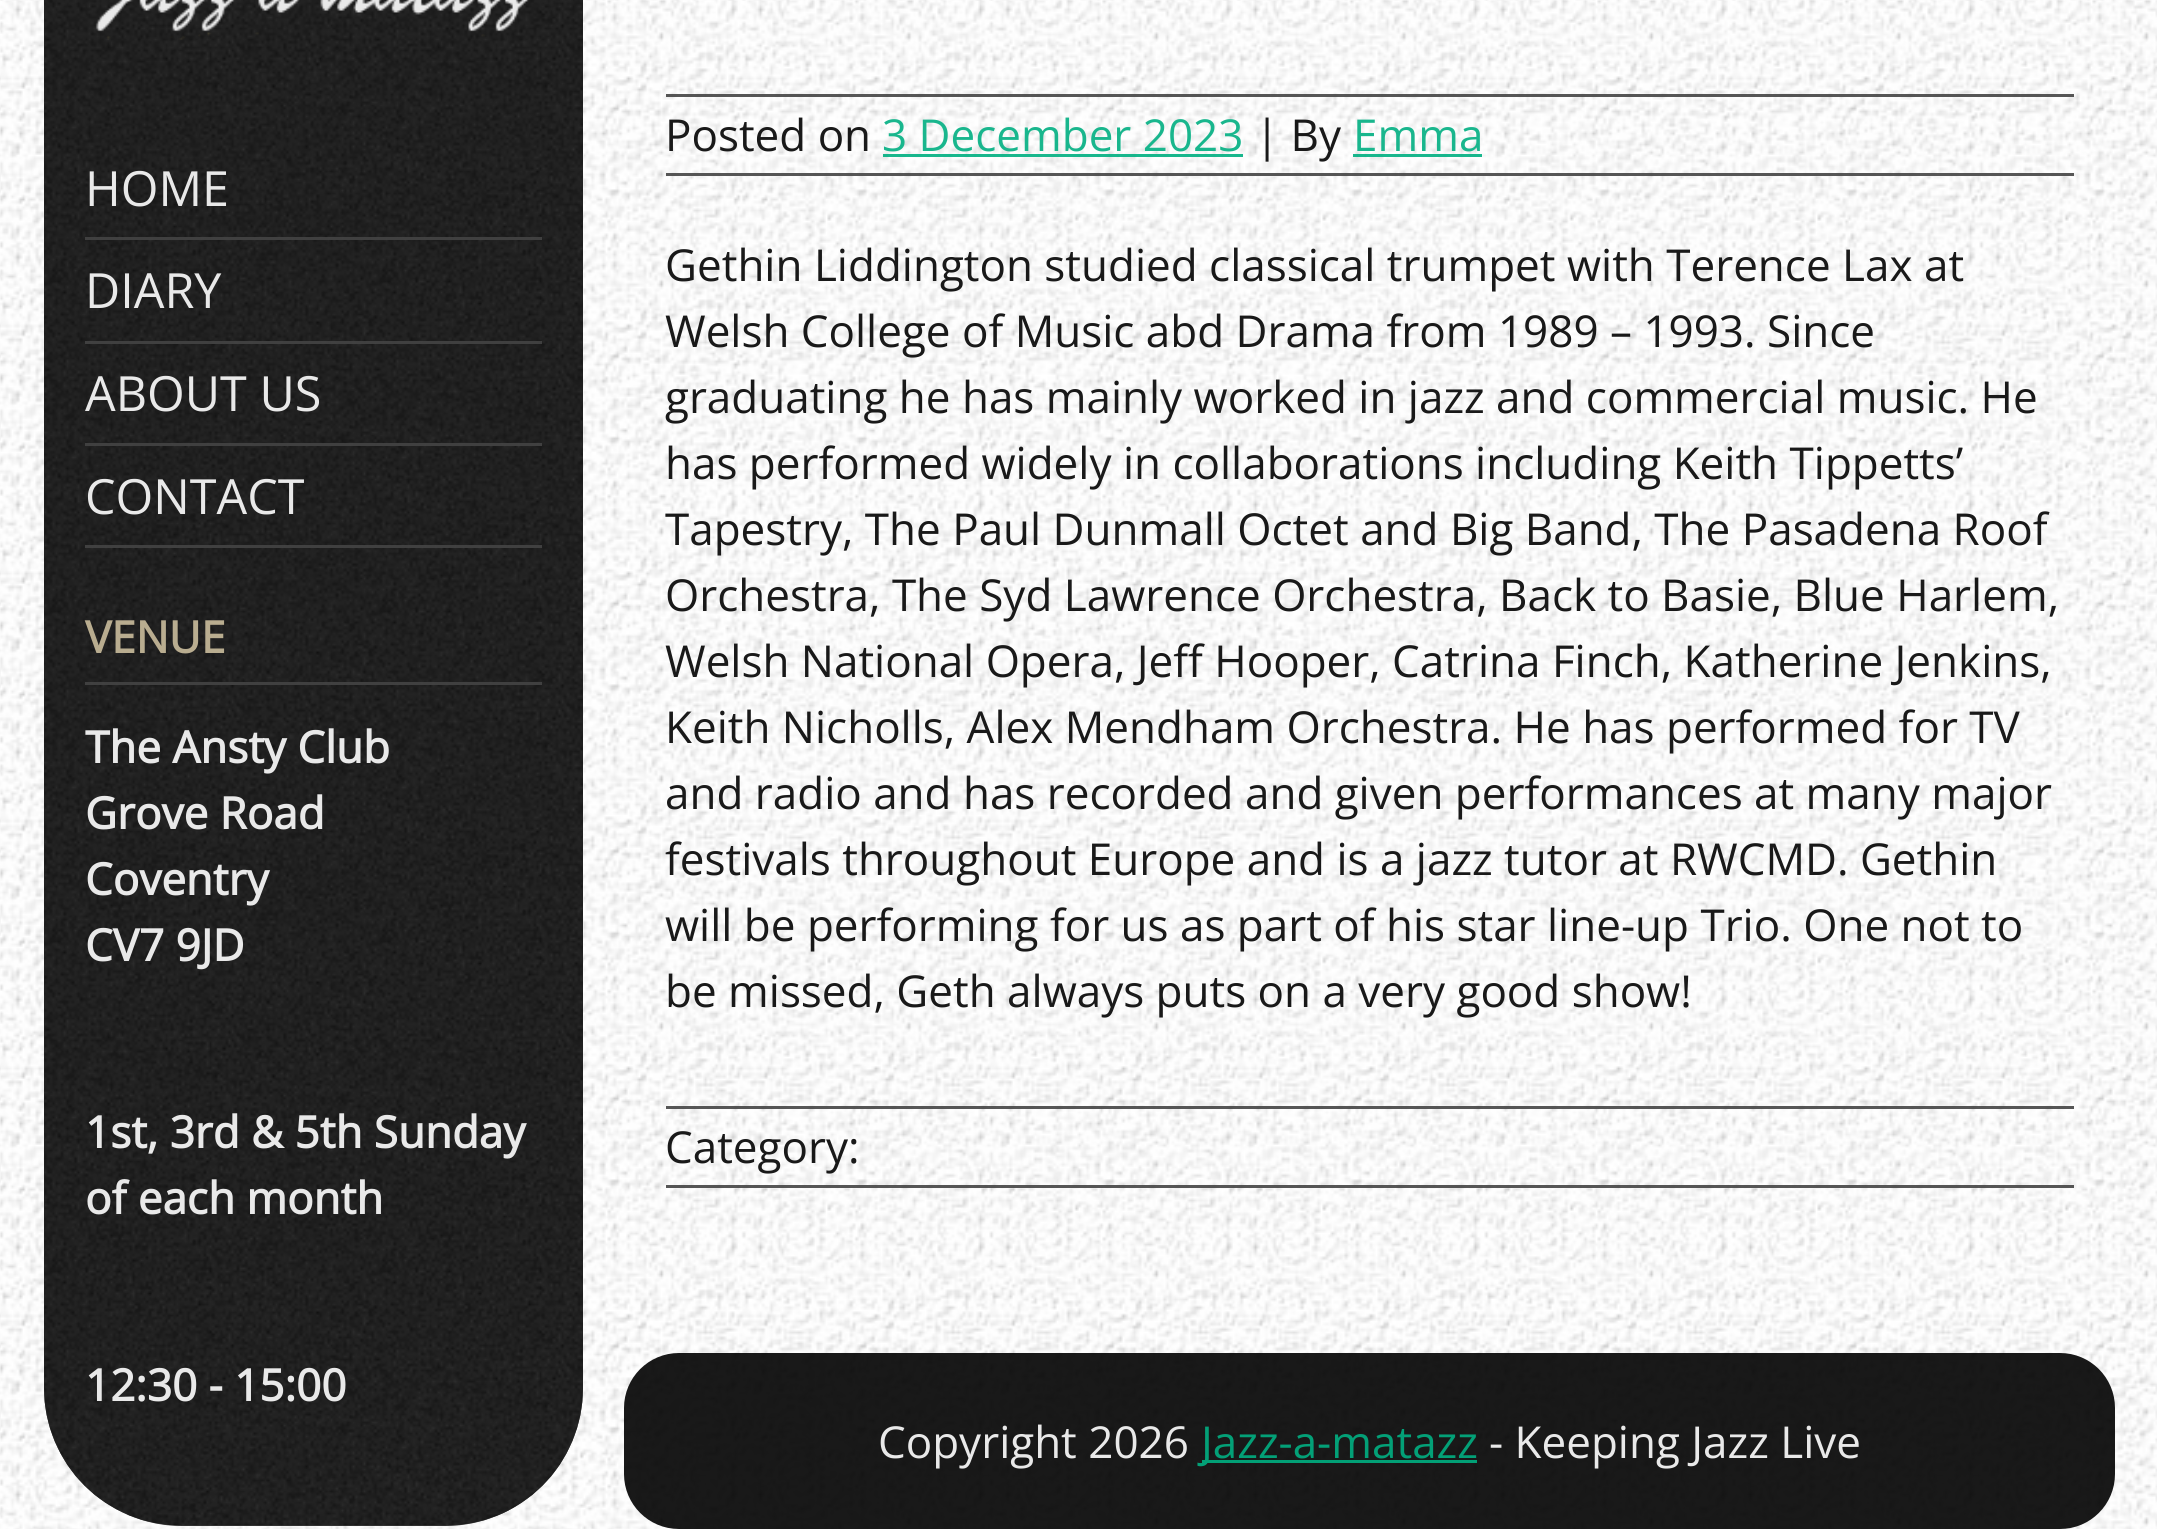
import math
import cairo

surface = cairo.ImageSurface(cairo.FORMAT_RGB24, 2157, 1529)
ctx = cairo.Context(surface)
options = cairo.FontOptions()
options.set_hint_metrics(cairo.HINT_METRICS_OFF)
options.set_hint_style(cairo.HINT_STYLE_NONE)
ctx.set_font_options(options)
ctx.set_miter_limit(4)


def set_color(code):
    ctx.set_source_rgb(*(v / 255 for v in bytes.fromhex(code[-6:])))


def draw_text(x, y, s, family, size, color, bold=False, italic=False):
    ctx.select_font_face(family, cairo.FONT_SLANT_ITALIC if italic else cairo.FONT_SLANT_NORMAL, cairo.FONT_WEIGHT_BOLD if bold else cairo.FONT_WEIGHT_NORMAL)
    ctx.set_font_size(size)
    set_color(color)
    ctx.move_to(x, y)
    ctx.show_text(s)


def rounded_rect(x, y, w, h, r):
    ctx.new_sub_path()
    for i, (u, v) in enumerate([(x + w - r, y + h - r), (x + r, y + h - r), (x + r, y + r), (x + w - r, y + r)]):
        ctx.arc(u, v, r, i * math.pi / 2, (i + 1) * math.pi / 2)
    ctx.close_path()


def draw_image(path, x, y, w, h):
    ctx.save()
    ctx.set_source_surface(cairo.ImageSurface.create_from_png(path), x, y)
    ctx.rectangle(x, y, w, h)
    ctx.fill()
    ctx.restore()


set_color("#ffffff")
ctx.paint()
draw_image("assets/img1.png", 0, 0, 2157, 1529)
ctx.set_source_rgba(0.2, 0.2, 0.2, 0.9)
ctx.new_path()
ctx.move_to(44, -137)
ctx.line_to(583, -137)
ctx.line_to(583, 1388)
ctx.curve_to(583, 1464, 521, 1526, 445, 1526)
ctx.line_to(182, 1526)
ctx.curve_to(106, 1526, 44, 1464, 44, 1388)
ctx.close_path()
ctx.fill()
draw_image("assets/img2.png", 44, 0, 539, 1526)
draw_image("assets/img3.png", 95, 0, 434, 40)
ctx.set_source_rgba(0.267, 0.267, 0.267, 0.9)
ctx.rectangle(85, 237, 457, 3)
ctx.fill()
draw_text(85, 206, "HOME", "Open Sans", 48.5, "#e9e9e9")
ctx.set_source_rgba(0.267, 0.267, 0.267, 0.9)
ctx.rectangle(85, 341, 457, 3)
ctx.fill()
draw_text(85, 308, "DIARY", "Open Sans", 48.5, "#e9e9e9")
ctx.set_source_rgba(0.267, 0.267, 0.267, 0.9)
ctx.rectangle(85, 443, 457, 3)
ctx.fill()
draw_text(85, 411, "ABOUT US", "Open Sans", 48.5, "#e9e9e9")
ctx.set_source_rgba(0.267, 0.267, 0.267, 0.9)
ctx.rectangle(85, 545, 457, 3)
ctx.fill()
draw_text(85, 514, "CONTACT", "Open Sans", 48.5, "#e9e9e9")
ctx.set_source_rgba(0.267, 0.267, 0.267, 0.9)
ctx.rectangle(85, 682, 457, 3)
ctx.fill()
draw_text(85, 653, "VENUE", "Open Sans", 44, "#b9ad90", bold=True)
draw_text(85, 763, "The Ansty Club", "Open Sans", 44, "#e9e9e9", bold=True)
draw_text(85, 829, "Grove Road", "Open Sans", 44, "#e9e9e9", bold=True)
draw_text(85, 895, "Coventry", "Open Sans", 44, "#e9e9e9", bold=True)
draw_text(85, 961, "CV7 9JD", "Open Sans", 44, "#e9e9e9", bold=True)
draw_text(85, 1148, "1st, 3rd & 5th Sunday", "Open Sans", 44, "#e9e9e9", bold=True)
draw_text(85, 1214, "of each month", "Open Sans", 44, "#e9e9e9", bold=True)
draw_text(85, 1401, "12:30 - 15:00", "Open Sans", 44, "#e9e9e9", bold=True)
ctx.set_source_rgba(0.267, 0.267, 0.267, 0.9)
ctx.rectangle(666, 94, 1408, 3)
ctx.fill()
ctx.rectangle(666, 173, 1408, 3)
ctx.fill()
draw_text(665, 151, "Posted on", "Open Sans", 44, "#191919")
draw_text(882, 151, "3 December 2023", "Open Sans", 44, "#19b68d")
ctx.set_source_rgba(0.004, 0.686, 0.506, 0.9)
ctx.rectangle(883, 154, 360, 3)
ctx.fill()
draw_text(1255, 151, "| By", "Open Sans", 44, "#191919")
draw_text(1353, 151, "Emma", "Open Sans", 44, "#19b68d")
ctx.set_source_rgba(0.004, 0.686, 0.506, 0.9)
ctx.rectangle(1353, 154, 129, 3)
ctx.fill()
draw_text(665, 281, "Gethin Liddington studied classical trumpet with Terence Lax at", "Open Sans", 44, "#191919")
draw_text(665, 347, "Welsh College of Music abd Drama from 1989 – 1993. Since", "Open Sans", 44, "#191919")
draw_text(665, 413, "graduating he has mainly worked in jazz and commercial music. He", "Open Sans", 44, "#191919")
draw_text(665, 479, "has performed widely in collaborations including Keith Tippetts’", "Open Sans", 44, "#191919")
draw_text(665, 545, "Tapestry, The Paul Dunmall Octet and Big Band, The Pasadena Roof", "Open Sans", 44, "#191919")
draw_text(665, 611, "Orchestra, The Syd Lawrence Orchestra, Back to Basie, Blue Harlem,", "Open Sans", 44, "#191919")
draw_text(665, 677, "Welsh National Opera, Jeff Hooper, Catrina Finch, Katherine Jenkins,", "Open Sans", 44, "#191919")
draw_text(665, 743, "Keith Nicholls, Alex Mendham Orchestra. He has performed for TV", "Open Sans", 44, "#191919")
draw_text(665, 809, "and radio and has recorded and given performances at many major", "Open Sans", 44, "#191919")
draw_text(665, 875, "festivals throughout Europe and is a jazz tutor at RWCMD. Gethin", "Open Sans", 44, "#191919")
draw_text(665, 941, "will be performing for us as part of his star line-up Trio. One not to", "Open Sans", 44, "#191919")
draw_text(665, 1007, "be missed, Geth always puts on a very good show!", "Open Sans", 44, "#191919")
ctx.set_source_rgba(0.267, 0.267, 0.267, 0.9)
ctx.rectangle(666, 1106, 1408, 3)
ctx.fill()
ctx.rectangle(666, 1185, 1408, 3)
ctx.fill()
draw_text(665, 1163, "Category:", "Open Sans", 44, "#191919")
ctx.set_source_rgba(0, 0, 0, 0.9)
rounded_rect(624, 1353, 1491, 176, 55)
ctx.fill()
draw_text(878, 1458, "Copyright 2026", "Open Sans", 44, "#e9e9e9")
ctx.set_source_rgba(0.004, 0.686, 0.506, 0.9)
ctx.rectangle(1202, 1460, 275, 3)
ctx.fill()
draw_text(1201, 1458, "Jazz-a-matazz", "Open Sans", 44, "#03a077")
draw_text(1489, 1458, "- Keeping Jazz Live", "Open Sans", 44, "#e9e9e9")
surface.write_to_png("output.png")
